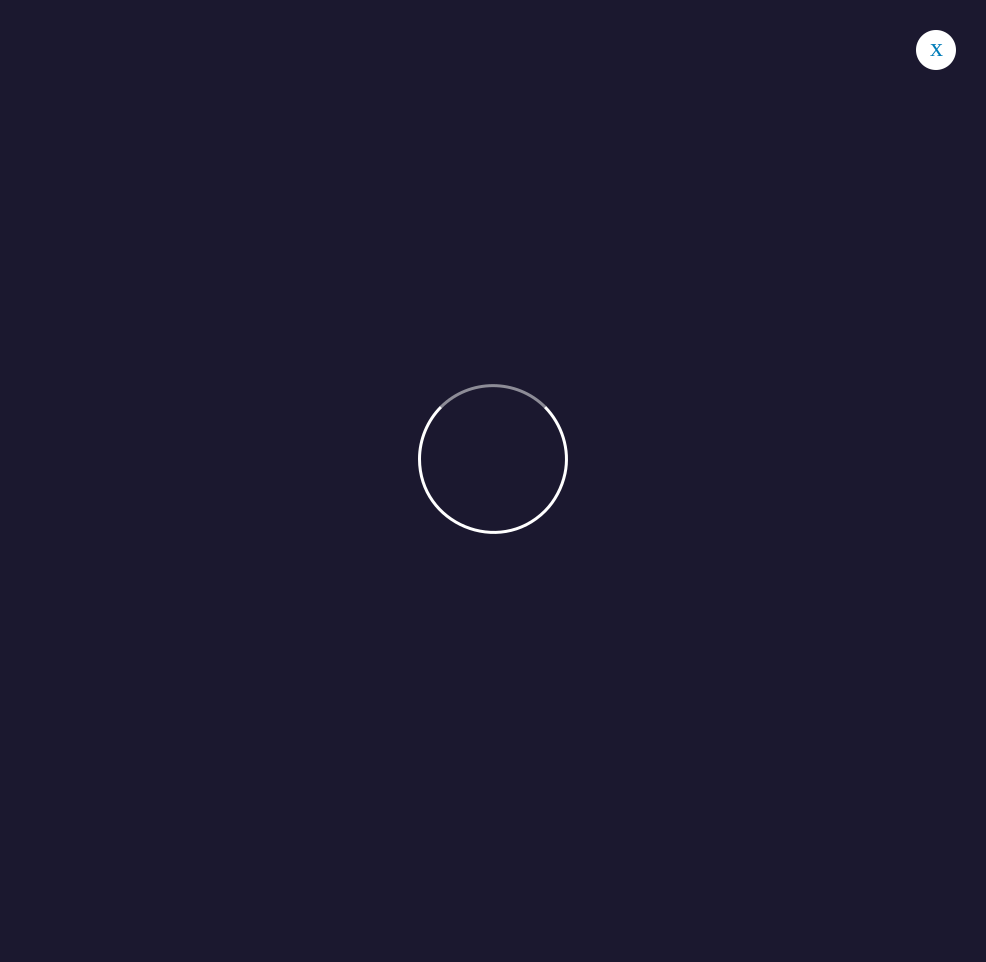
import math
import cairo

surface = cairo.ImageSurface(cairo.FORMAT_RGB24, 986, 962)
ctx = cairo.Context(surface)
options = cairo.FontOptions()
options.set_hint_metrics(cairo.HINT_METRICS_OFF)
options.set_hint_style(cairo.HINT_STYLE_NONE)
ctx.set_font_options(options)
ctx.set_miter_limit(4)


def set_color(code):
    ctx.set_source_rgb(*(v / 255 for v in bytes.fromhex(code[-6:])))


def draw_text(x, y, s, family, size, color, bold=False, italic=False):
    ctx.select_font_face(family, cairo.FONT_SLANT_ITALIC if italic else cairo.FONT_SLANT_NORMAL, cairo.FONT_WEIGHT_BOLD if bold else cairo.FONT_WEIGHT_NORMAL)
    ctx.set_font_size(size)
    set_color(color)
    ctx.move_to(x, y)
    ctx.show_text(s)


set_color("#1b182f")
ctx.paint()
set_color("#ffffff")
ctx.arc(936, 50, 20, 0, 2 * math.pi)
ctx.fill()
draw_text(930, 56, "x", "Liberation Serif", 26, "#007cb8")
ctx.new_path()
ctx.move_to(441, 407)
ctx.curve_to(469.5, 378.5, 516.5, 378.5, 545, 407)
set_color("#8d8c97")
ctx.set_line_width(3)
ctx.stroke()
ctx.new_path()
ctx.move_to(545, 407)
ctx.curve_to(562, 424.5, 570, 449.5, 565, 473.5)
ctx.curve_to(562, 487.5, 555, 501, 545, 511)
ctx.curve_to(499, 557, 419.5, 524, 419.5, 459)
ctx.curve_to(419.5, 439.5, 427.5, 420.5, 441, 407)
set_color("#ffffff")
ctx.stroke()
surface.write_to_png("output.png")
